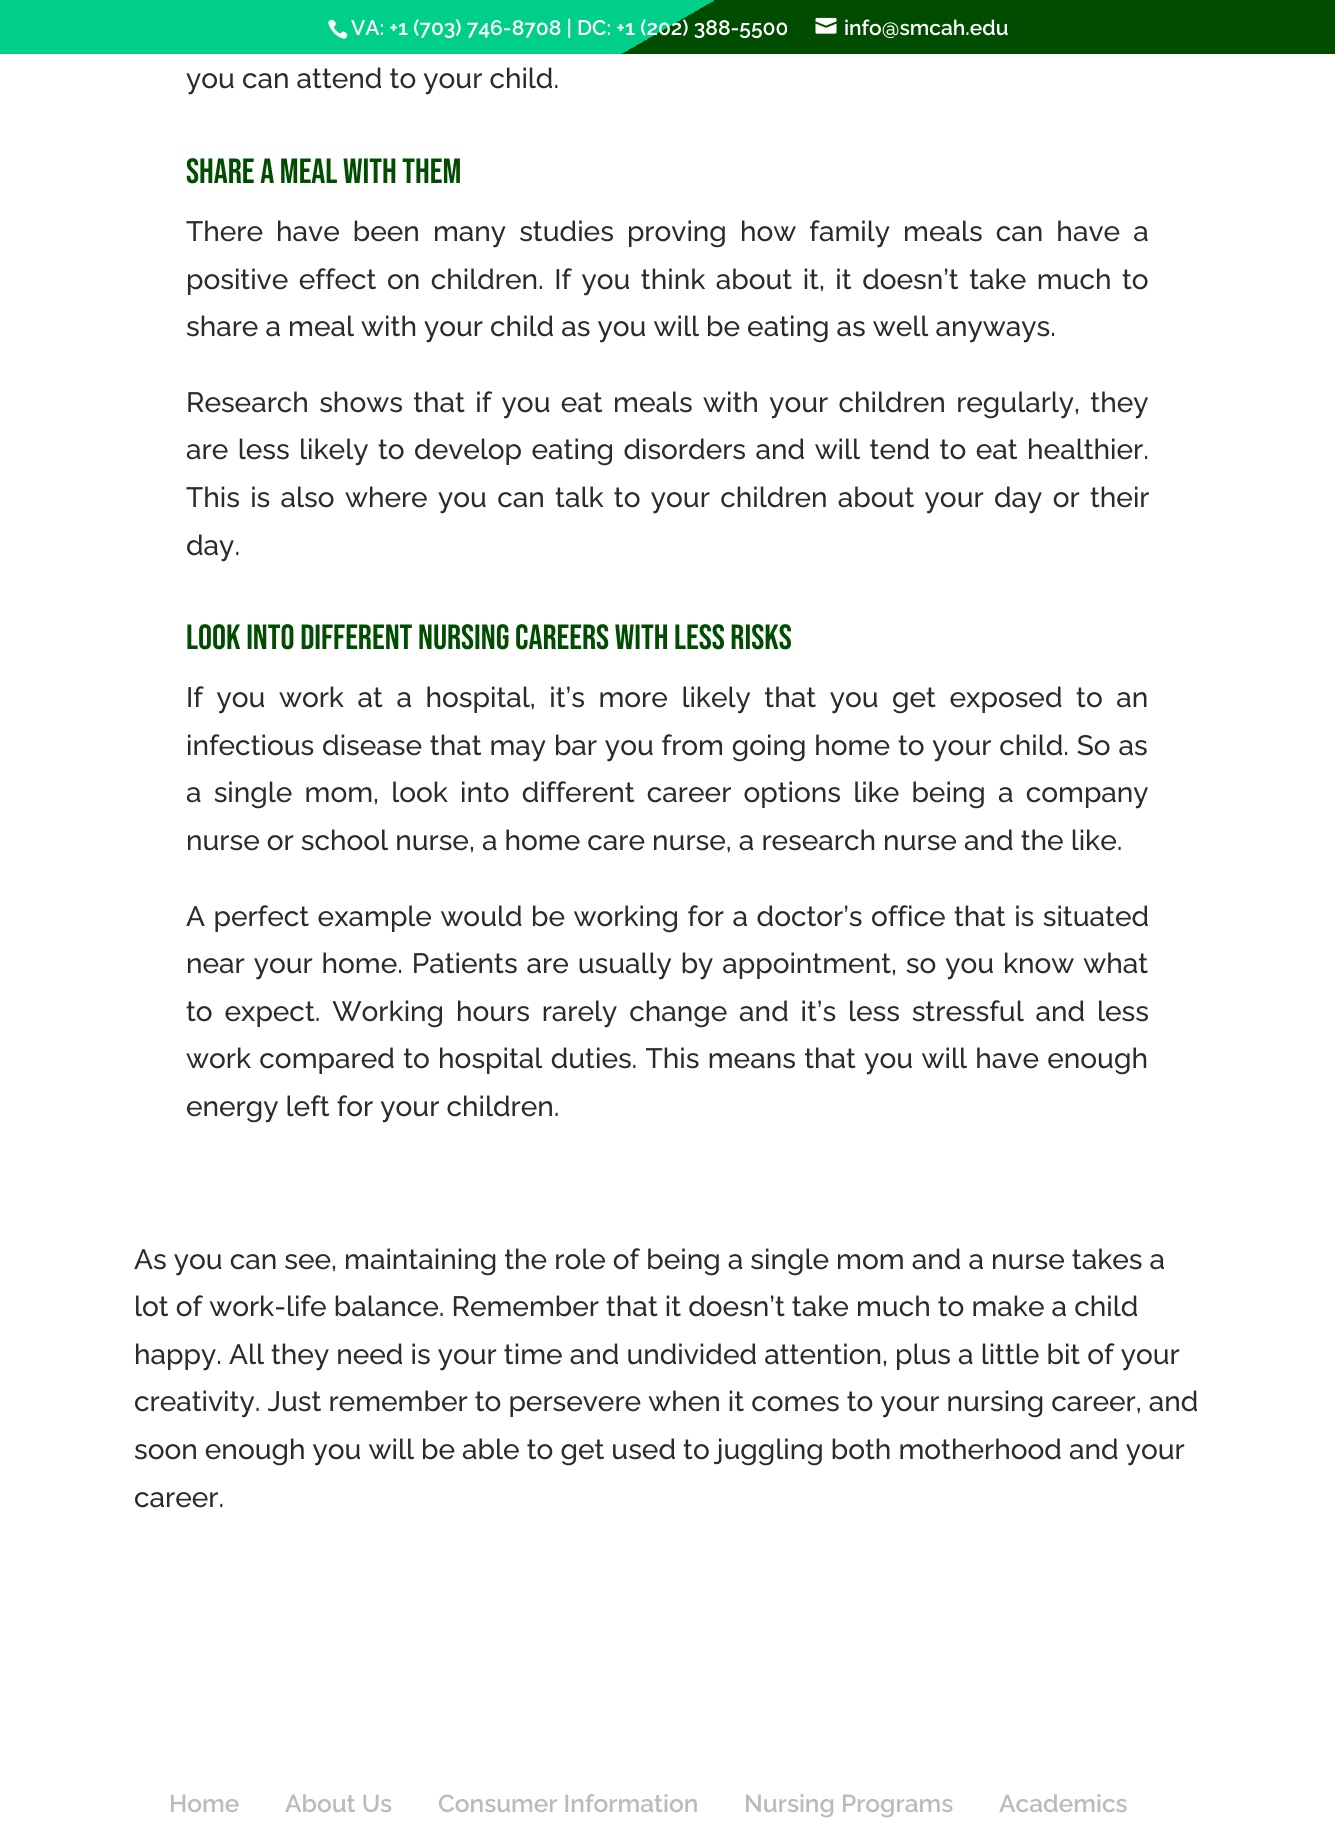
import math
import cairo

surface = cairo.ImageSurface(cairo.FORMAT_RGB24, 1335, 1827)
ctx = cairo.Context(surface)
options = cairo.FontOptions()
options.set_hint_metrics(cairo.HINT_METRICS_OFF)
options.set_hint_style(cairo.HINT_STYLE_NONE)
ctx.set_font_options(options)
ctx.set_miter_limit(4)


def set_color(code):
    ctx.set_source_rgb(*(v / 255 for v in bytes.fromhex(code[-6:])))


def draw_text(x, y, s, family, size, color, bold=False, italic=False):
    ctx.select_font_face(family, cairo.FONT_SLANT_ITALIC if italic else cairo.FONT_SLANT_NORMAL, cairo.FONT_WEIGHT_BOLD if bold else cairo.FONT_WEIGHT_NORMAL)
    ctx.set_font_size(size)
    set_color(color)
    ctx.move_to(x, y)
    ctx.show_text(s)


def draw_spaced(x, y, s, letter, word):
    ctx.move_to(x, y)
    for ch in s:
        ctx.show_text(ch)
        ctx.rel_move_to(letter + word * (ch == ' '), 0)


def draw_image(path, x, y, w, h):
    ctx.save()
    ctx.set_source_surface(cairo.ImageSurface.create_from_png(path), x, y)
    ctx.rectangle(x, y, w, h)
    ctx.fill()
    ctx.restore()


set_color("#ffffff")
ctx.paint()
gradient = cairo.LinearGradient(489, -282, 846, 337)
gradient.add_color_stop_rgba(0.5, 0, 0.812, 0.537, 1)
gradient.add_color_stop_rgba(0.5, 0, 0.298, 0, 1)
ctx.set_source(gradient)
ctx.rectangle(0, 0, 1335, 54)
ctx.fill()
draw_image("assets/img1.png", 328, 19, 20, 20)
draw_text(351, 35, "VA: +1 (703) 746-8708 | DC: +1 (202) 388-5500", "Raleway SemiBold", 21, "#ffffff")
draw_image("assets/img2.png", 815, 17, 22, 17)
draw_text(844, 35, "info@smcah.edu", "Raleway SemiBold", 21, "#ffffff")
draw_text(186, 88, "you can attend to your child.", "Raleway Medium", 28, "#2b2b2b")
draw_text(186, 183, "SHARE A MEAL WITH THEM", "Bebas Neue", 35, "#004c00")
ctx.select_font_face("Raleway Medium")
ctx.set_font_size(28)
set_color("#2b2b2b")
draw_spaced(186, 241, "There have been many studies proving how family meals can have a", 0, 6)
draw_spaced(186, 289, "positive effect on children. If you think about it, it doesn’t take much to", 0, 3.4)
draw_text(186, 336, "share a meal with your child as you will be eating as well anyways.", "Raleway Medium", 28, "#2b2b2b")
draw_spaced(186, 412, "Research shows that if you eat meals with your children regularly, they", 0, 3.25)
draw_spaced(186, 459, "are less likely to develop eating disorders and will tend to eat healthier.", 0, 2.4)
draw_spaced(186, 507, "This is also where you can talk to your children about your day or their", 0, 3.25)
draw_text(186, 555, "day.", "Raleway Medium", 28, "#2b2b2b")
draw_text(186, 649, "LOOK INTO DIFFERENT NURSING CAREERS WITH LESS RISKS", "Bebas Neue", 35, "#004c00")
ctx.select_font_face("Raleway Medium")
ctx.set_font_size(28)
set_color("#2b2b2b")
draw_spaced(186, 707, "If you work at a hospital, it’s more likely that you get exposed to an", 0, 6.5)
draw_spaced(186, 755, "infectious disease that may bar you from going home to your child. So as", 0, 0.75)
draw_spaced(186, 802, "a single mom, look into different career options like being a company", 0, 5.1)
draw_text(186, 850, "nurse or school nurse, a home care nurse, a research nurse and the like.", "Raleway Medium", 28, "#2b2b2b")
draw_spaced(186, 926, "A perfect example would be working for a doctor’s office that is situated", 0, 1.4)
draw_spaced(186, 973, "near your home. Patients are usually by appointment, so you know what", 0, 1.8)
draw_spaced(186, 1021, "to expect. Working hours rarely change and it’s less stressful and less", 0, 4.75)
draw_spaced(186, 1068, "work compared to hospital duties. This means that you will have enough", 0, 1.25)
draw_text(186, 1116, "energy left for your children.", "Raleway Medium", 28, "#2b2b2b")
draw_text(134, 1269, "As you can see, maintaining the role of being a single mom and a nurse takes a", "Raleway Medium", 28, "#2b2b2b")
draw_text(134, 1316, "lot of work-life balance. Remember that it doesn’t take much to make a child", "Raleway Medium", 28, "#2b2b2b")
draw_text(134, 1364, "happy. All they need is your time and undivided attention, plus a little bit of your", "Raleway Medium", 28, "#2b2b2b")
draw_text(134, 1411, "creativity. Just remember to persevere when it comes to your nursing career, and", "Raleway Medium", 28, "#2b2b2b")
draw_text(134, 1459, "soon enough you will be able to get used to juggling both motherhood and your", "Raleway Medium", 28, "#2b2b2b")
draw_text(134, 1507, "career.", "Raleway Medium", 28, "#2b2b2b")
draw_text(169, 1812, "Home", "Raleway SemiBold", 24.5, "#bbbbbb")
draw_text(285, 1812, "About Us", "Raleway SemiBold", 24.5, "#bbbbbb")
draw_text(438, 1812, "Consumer Information", "Raleway SemiBold", 24.5, "#bbbbbb")
draw_text(744, 1812, "Nursing Programs", "Raleway SemiBold", 24.5, "#bbbbbb")
draw_text(999, 1812, "Academics", "Raleway SemiBold", 24.5, "#bbbbbb")
surface.write_to_png("output.png")
